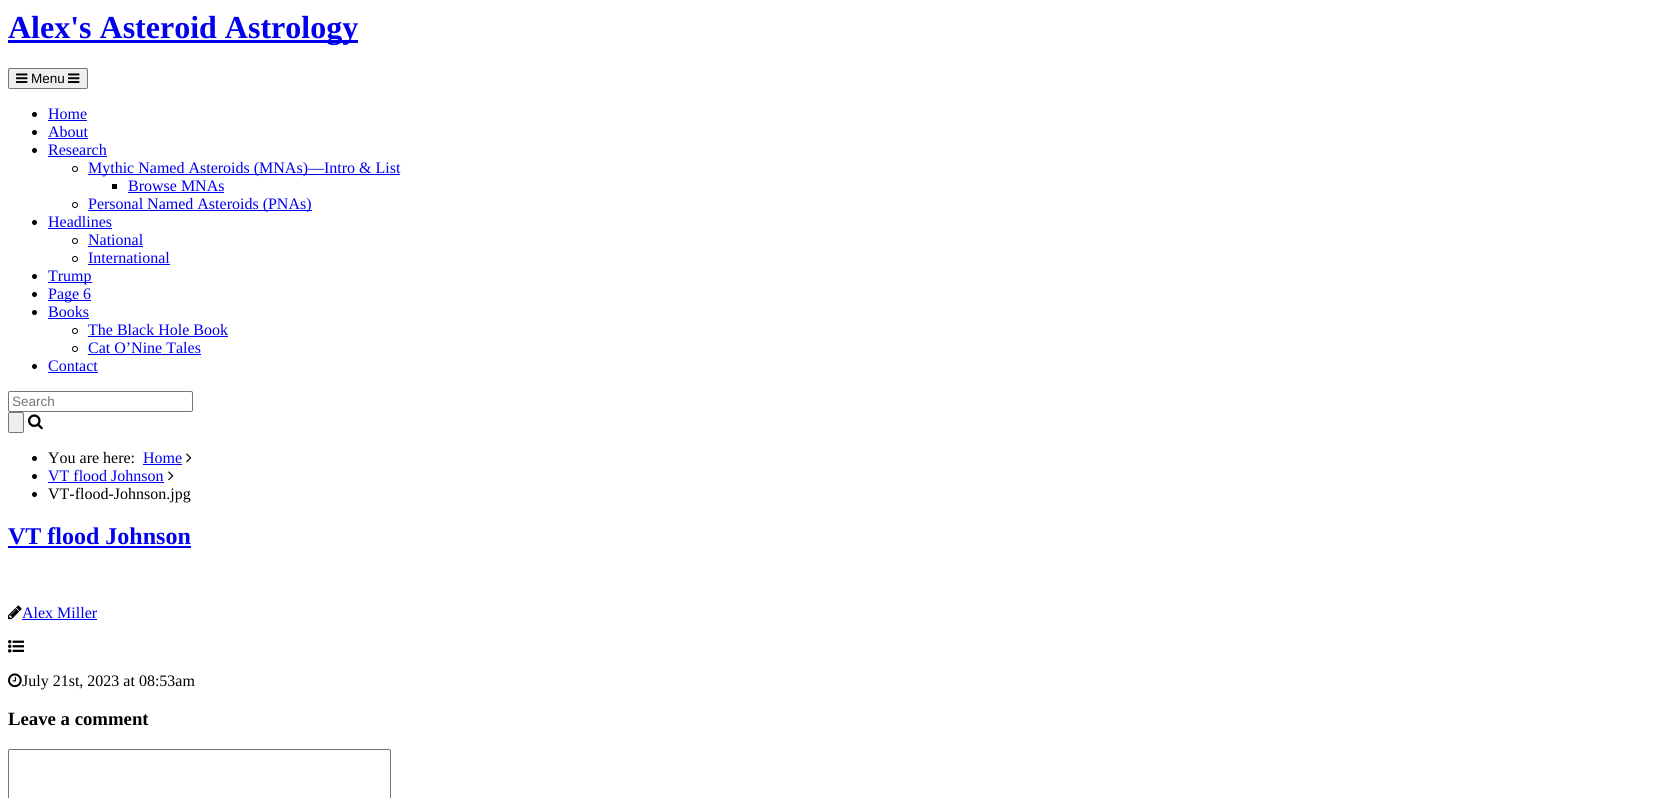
import math
import cairo

surface = cairo.ImageSurface(cairo.FORMAT_RGB24, 1653, 798)
ctx = cairo.Context(surface)
options = cairo.FontOptions()
options.set_hint_metrics(cairo.HINT_METRICS_OFF)
options.set_hint_style(cairo.HINT_STYLE_NONE)
ctx.set_font_options(options)
ctx.set_miter_limit(4)


def set_color(code):
    ctx.set_source_rgb(*(v / 255 for v in bytes.fromhex(code[-6:])))


def draw_text(x, y, s, family, size, color, bold=False, italic=False):
    ctx.select_font_face(family, cairo.FONT_SLANT_ITALIC if italic else cairo.FONT_SLANT_NORMAL, cairo.FONT_WEIGHT_BOLD if bold else cairo.FONT_WEIGHT_NORMAL)
    ctx.set_font_size(size)
    set_color(color)
    ctx.move_to(x, y)
    ctx.show_text(s)


def fill_rect(x, y, w, h, color):
    set_color(color)
    ctx.rectangle(x, y, w, h)
    ctx.fill()


def rounded_rect(x, y, w, h, r):
    ctx.new_sub_path()
    for i, (u, v) in enumerate([(x + w - r, y + h - r), (x + r, y + h - r), (x + r, y + r), (x + w - r, y + r)]):
        ctx.arc(u, v, r, i * math.pi / 2, (i + 1) * math.pi / 2)
    ctx.close_path()


def draw_image(path, x, y, w, h):
    ctx.save()
    ctx.set_source_surface(cairo.ImageSurface.create_from_png(path), x, y)
    ctx.rectangle(x, y, w, h)
    ctx.fill()
    ctx.restore()


set_color("#ffffff")
ctx.paint()
fill_rect(8, 40, 350, 3, "#0000ee")
draw_text(8, 38, "Alex's Asteroid Astrology", "Liberation Serif", 32, "#0000ee", bold=True)
set_color("#efefef")
rounded_rect(8.5, 68.5, 79, 20, 1.5)
ctx.fill_preserve()
set_color("#767676")
ctx.set_line_width(1)
ctx.stroke()
draw_image("assets/img1.png", 16, 73, 12, 10)
draw_text(31, 83, "Menu", "Liberation Sans", 13.5, "#000000")
draw_image("assets/img1.png", 68, 73, 12, 10)
ctx.arc(34.5, 114.5, 2.5, 0, 2 * math.pi)
ctx.fill()
draw_text(48, 119, "Home", "Liberation Serif", 16, "#0000ee")
fill_rect(48, 120, 39, 1, "#0000ee")
set_color("#000000")
ctx.new_path()
ctx.arc(34.5, 132.5, 2.5, 0, 2 * math.pi)
ctx.fill()
draw_text(48, 137, "About", "Liberation Serif", 16, "#0000ee")
fill_rect(48, 138, 40, 1, "#0000ee")
set_color("#000000")
ctx.new_path()
ctx.arc(34.5, 150.5, 2.5, 0, 2 * math.pi)
ctx.fill()
draw_text(48, 155, "Research", "Liberation Serif", 16, "#0000ee")
fill_rect(48, 156, 59, 1, "#0000ee")
ctx.new_path()
ctx.arc(75, 169, 2.5, 0, 2 * math.pi)
set_color("#000000")
ctx.stroke()
fill_rect(88, 174, 312, 1, "#0000ee")
draw_text(88, 173, "Mythic Named Asteroids (MNAs)—Intro & List", "Liberation Serif", 16, "#0000ee")
fill_rect(112, 184, 5, 5, "#000000")
draw_text(128, 191, "Browse MNAs", "Liberation Serif", 16, "#0000ee")
fill_rect(128, 192, 96, 1, "#0000ee")
ctx.new_path()
ctx.arc(75, 205, 2.5, 0, 2 * math.pi)
set_color("#000000")
ctx.stroke()
fill_rect(88, 210, 224, 1, "#0000ee")
draw_text(88, 209, "Personal Named Asteroids (PNAs)", "Liberation Serif", 16, "#0000ee")
set_color("#000000")
ctx.new_path()
ctx.arc(34.5, 222.5, 2.5, 0, 2 * math.pi)
ctx.fill()
draw_text(48, 227, "Headlines", "Liberation Serif", 16, "#0000ee")
fill_rect(48, 228, 64, 1, "#0000ee")
ctx.new_path()
ctx.arc(75, 241, 2.5, 0, 2 * math.pi)
set_color("#000000")
ctx.stroke()
draw_text(88, 245, "National", "Liberation Serif", 16, "#0000ee")
fill_rect(88, 246, 55, 1, "#0000ee")
ctx.new_path()
ctx.arc(75, 259, 2.5, 0, 2 * math.pi)
set_color("#000000")
ctx.stroke()
draw_text(88, 263, "International", "Liberation Serif", 16, "#0000ee")
fill_rect(88, 264, 82, 1, "#0000ee")
set_color("#000000")
ctx.new_path()
ctx.arc(34.5, 276.5, 2.5, 0, 2 * math.pi)
ctx.fill()
fill_rect(48, 282, 44, 1, "#0000ee")
draw_text(48, 281, "Trump", "Liberation Serif", 16, "#0000ee")
set_color("#000000")
ctx.new_path()
ctx.arc(34.5, 294.5, 2.5, 0, 2 * math.pi)
ctx.fill()
fill_rect(48, 300, 43, 1, "#0000ee")
draw_text(48, 299, "Page 6", "Liberation Serif", 16, "#0000ee")
set_color("#000000")
ctx.new_path()
ctx.arc(34.5, 312.5, 2.5, 0, 2 * math.pi)
ctx.fill()
draw_text(48, 317, "Books", "Liberation Serif", 16, "#0000ee")
fill_rect(48, 318, 41, 1, "#0000ee")
ctx.new_path()
ctx.arc(75, 331, 2.5, 0, 2 * math.pi)
set_color("#000000")
ctx.stroke()
draw_text(88, 335, "The Black Hole Book", "Liberation Serif", 16, "#0000ee")
fill_rect(88, 336, 140, 1, "#0000ee")
ctx.new_path()
ctx.arc(75, 349, 2.5, 0, 2 * math.pi)
set_color("#000000")
ctx.stroke()
draw_text(88, 353, "Cat O’Nine Tales", "Liberation Serif", 16, "#0000ee")
fill_rect(88, 354, 113, 1, "#0000ee")
set_color("#000000")
ctx.new_path()
ctx.arc(34.5, 366.5, 2.5, 0, 2 * math.pi)
ctx.fill()
draw_text(48, 371, "Contact", "Liberation Serif", 16, "#0000ee")
fill_rect(48, 372, 50, 1, "#0000ee")
rounded_rect(8.5, 391.5, 184, 20, 1.5)
set_color("#767676")
ctx.stroke()
draw_text(12, 406, "Search", "Liberation Sans", 13.5, "#757575")
set_color("#efefef")
rounded_rect(8.5, 412.5, 15, 20, 1.5)
ctx.fill_preserve()
set_color("#767676")
ctx.stroke()
draw_image("assets/img2.png", 28, 414, 15, 16)
set_color("#000000")
ctx.arc(34.5, 458.5, 2.5, 0, 2 * math.pi)
ctx.fill()
draw_text(48, 463, "You are here:", "Liberation Serif", 16, "#000000")
draw_text(143, 463, "Home", "Liberation Serif", 16, "#0000ee")
fill_rect(143, 464, 39, 1, "#0000ee")
draw_image("assets/img3.png", 186, 453, 6, 10)
set_color("#000000")
ctx.arc(34.5, 476.5, 2.5, 0, 2 * math.pi)
ctx.fill()
draw_text(48, 481, "VT flood Johnson", "Liberation Serif", 16, "#0000ee")
fill_rect(48, 482, 116, 1, "#0000ee")
draw_image("assets/img3.png", 168, 471, 6, 10)
set_color("#000000")
ctx.arc(34.5, 494.5, 2.5, 0, 2 * math.pi)
ctx.fill()
draw_text(48, 499, "VT-flood-Johnson.jpg", "Liberation Serif", 16, "#000000")
draw_text(8, 544, "VT flood Johnson", "Liberation Serif", 24, "#0000ee", bold=True)
fill_rect(8, 546, 183, 2, "#0000ee")
draw_image("assets/img4.png", 8, 605, 14, 15)
draw_text(22, 618, "Alex Miller", "Liberation Serif", 16, "#0000ee")
fill_rect(22, 619, 75, 1, "#0000ee")
draw_image("assets/img5.png", 8, 640, 16, 13)
draw_image("assets/img6.png", 8, 673, 14, 15)
draw_text(22, 686, "July 21st, 2023 at 08:53am", "Liberation Serif", 16, "#000000")
draw_text(8, 725, "Leave a comment", "Liberation Serif", 18.75, "#000000", bold=True)
rounded_rect(8.5, 749.5, 382, 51, 1.5)
set_color("#767676")
ctx.stroke()
surface.write_to_png("output.png")
